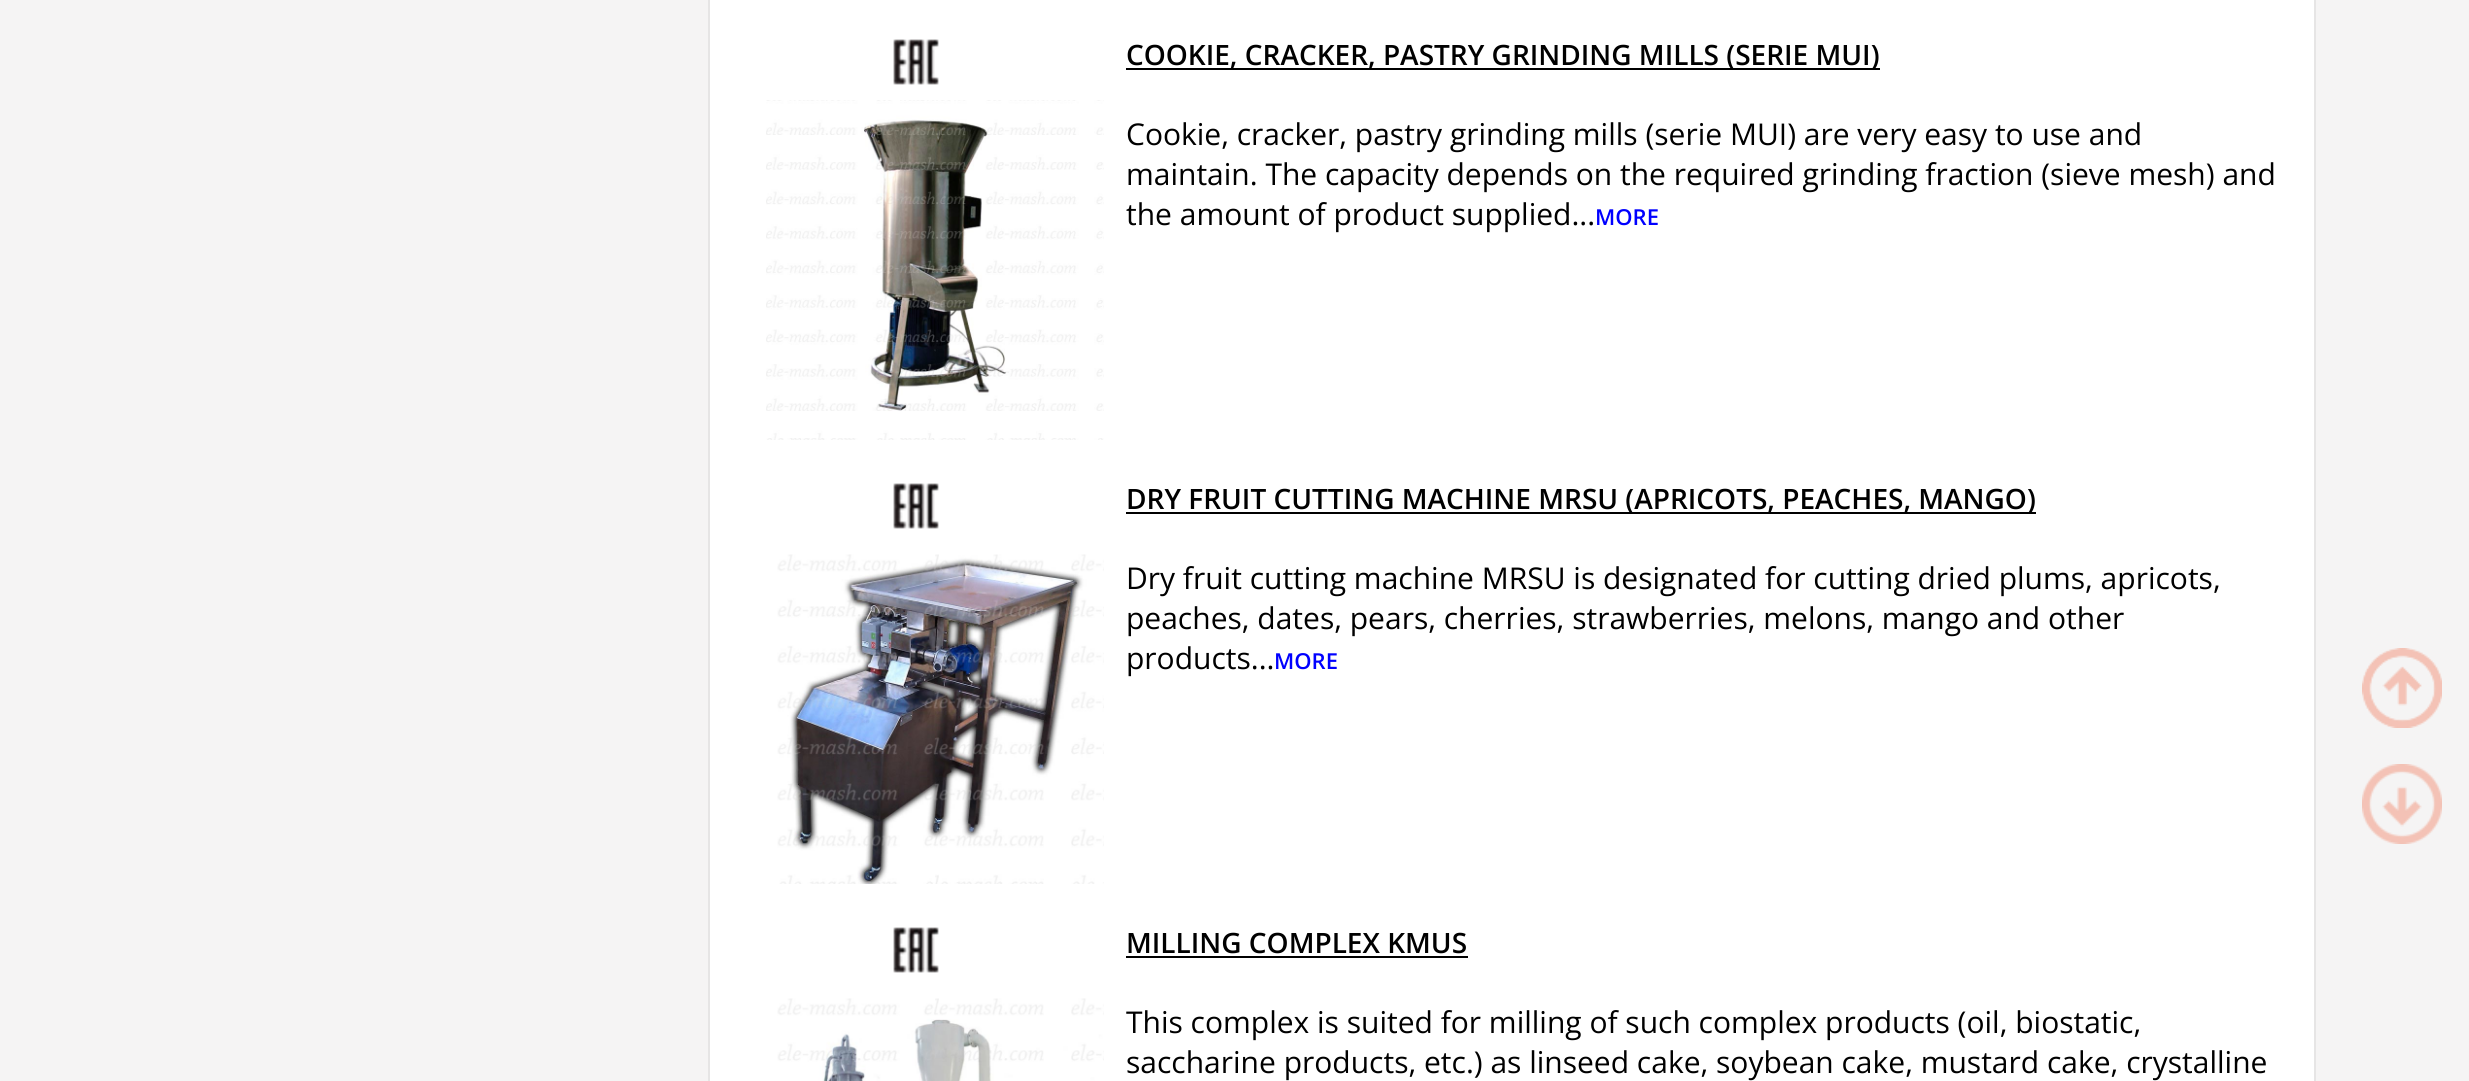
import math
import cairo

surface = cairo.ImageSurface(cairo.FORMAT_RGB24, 2469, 1081)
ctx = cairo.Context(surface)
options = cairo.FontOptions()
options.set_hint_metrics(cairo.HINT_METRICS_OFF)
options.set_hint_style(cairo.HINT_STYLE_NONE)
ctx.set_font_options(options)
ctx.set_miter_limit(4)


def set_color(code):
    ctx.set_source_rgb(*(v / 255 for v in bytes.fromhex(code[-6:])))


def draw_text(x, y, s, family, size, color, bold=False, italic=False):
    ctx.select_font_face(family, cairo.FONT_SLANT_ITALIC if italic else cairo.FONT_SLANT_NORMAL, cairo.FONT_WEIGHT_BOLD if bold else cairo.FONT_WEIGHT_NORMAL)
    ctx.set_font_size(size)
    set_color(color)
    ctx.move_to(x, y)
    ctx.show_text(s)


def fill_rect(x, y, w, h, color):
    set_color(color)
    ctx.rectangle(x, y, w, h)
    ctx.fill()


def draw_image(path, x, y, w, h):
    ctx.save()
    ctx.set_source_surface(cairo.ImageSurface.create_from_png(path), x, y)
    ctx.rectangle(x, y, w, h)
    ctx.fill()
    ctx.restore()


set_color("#f5f4f4")
ctx.paint()
fill_rect(710, 0, 1604, 1081, "#ffffff")
fill_rect(2314, 0, 2, 1081, "#e6e5e5")
fill_rect(708, 0, 2, 1081, "#e6e5e5")
draw_image("assets/img1.png", 893, 39, 46, 46)
draw_image("assets/img2.png", 766, 100, 338, 340)
fill_rect(1126, 68, 754, 2, "#000000")
draw_text(1126, 65, "COOKIE, CRACKER, PASTRY GRINDING MILLS (SERIE MUI)", "Open Sans SemiBold", 28, "#000000")
draw_text(1126, 145, "Cookie, cracker, pastry grinding mills (serie MUI) are very easy to use and", "Open Sans", 30, "#000000")
draw_text(1126, 185, "maintain. The capacity depends on the required grinding fraction (sieve mesh) and", "Open Sans", 30, "#000000")
draw_text(1126, 225, "the amount of product supplied...", "Open Sans", 30, "#000000")
draw_text(1595, 225, "MORE", "Open Sans SemiBold", 22, "#0000ff")
draw_image("assets/img1.png", 893, 483, 46, 46)
draw_image("assets/img3.png", 777, 554, 327, 330)
fill_rect(1126, 512, 910, 2, "#000000")
draw_text(1126, 509, "DRY FRUIT CUTTING MACHINE MRSU (APRICOTS, PEACHES, MANGO)", "Open Sans SemiBold", 28, "#000000")
draw_text(1126, 589, "Dry fruit cutting machine MRSU is designated for cutting dried plums, apricots,", "Open Sans", 30, "#000000")
draw_text(1126, 629, "peaches, dates, pears, cherries, strawberries, melons, mango and other", "Open Sans", 30, "#000000")
draw_text(1126, 669, "products...", "Open Sans", 30, "#000000")
draw_text(1274, 669, "MORE", "Open Sans SemiBold", 22, "#0000ff")
draw_image("assets/img1.png", 893, 927, 46, 46)
draw_image("assets/img4.png", 777, 998, 327, 83)
draw_text(1126, 953, "MILLING COMPLEX KMUS", "Open Sans SemiBold", 28, "#000000")
fill_rect(1126, 956, 342, 2, "#000000")
draw_text(1126, 1033, "This complex is suited for milling of such complex products (oil, biostatic,", "Open Sans", 30, "#000000")
draw_text(1126, 1073, "saccharine products, etc.) as linseed cake, soybean cake, mustard cake, crystalline", "Open Sans", 30, "#000000")
draw_image("assets/img5.png", 2362, 648, 80, 80)
draw_image("assets/img6.png", 2362, 764, 80, 80)
surface.write_to_png("output.png")
